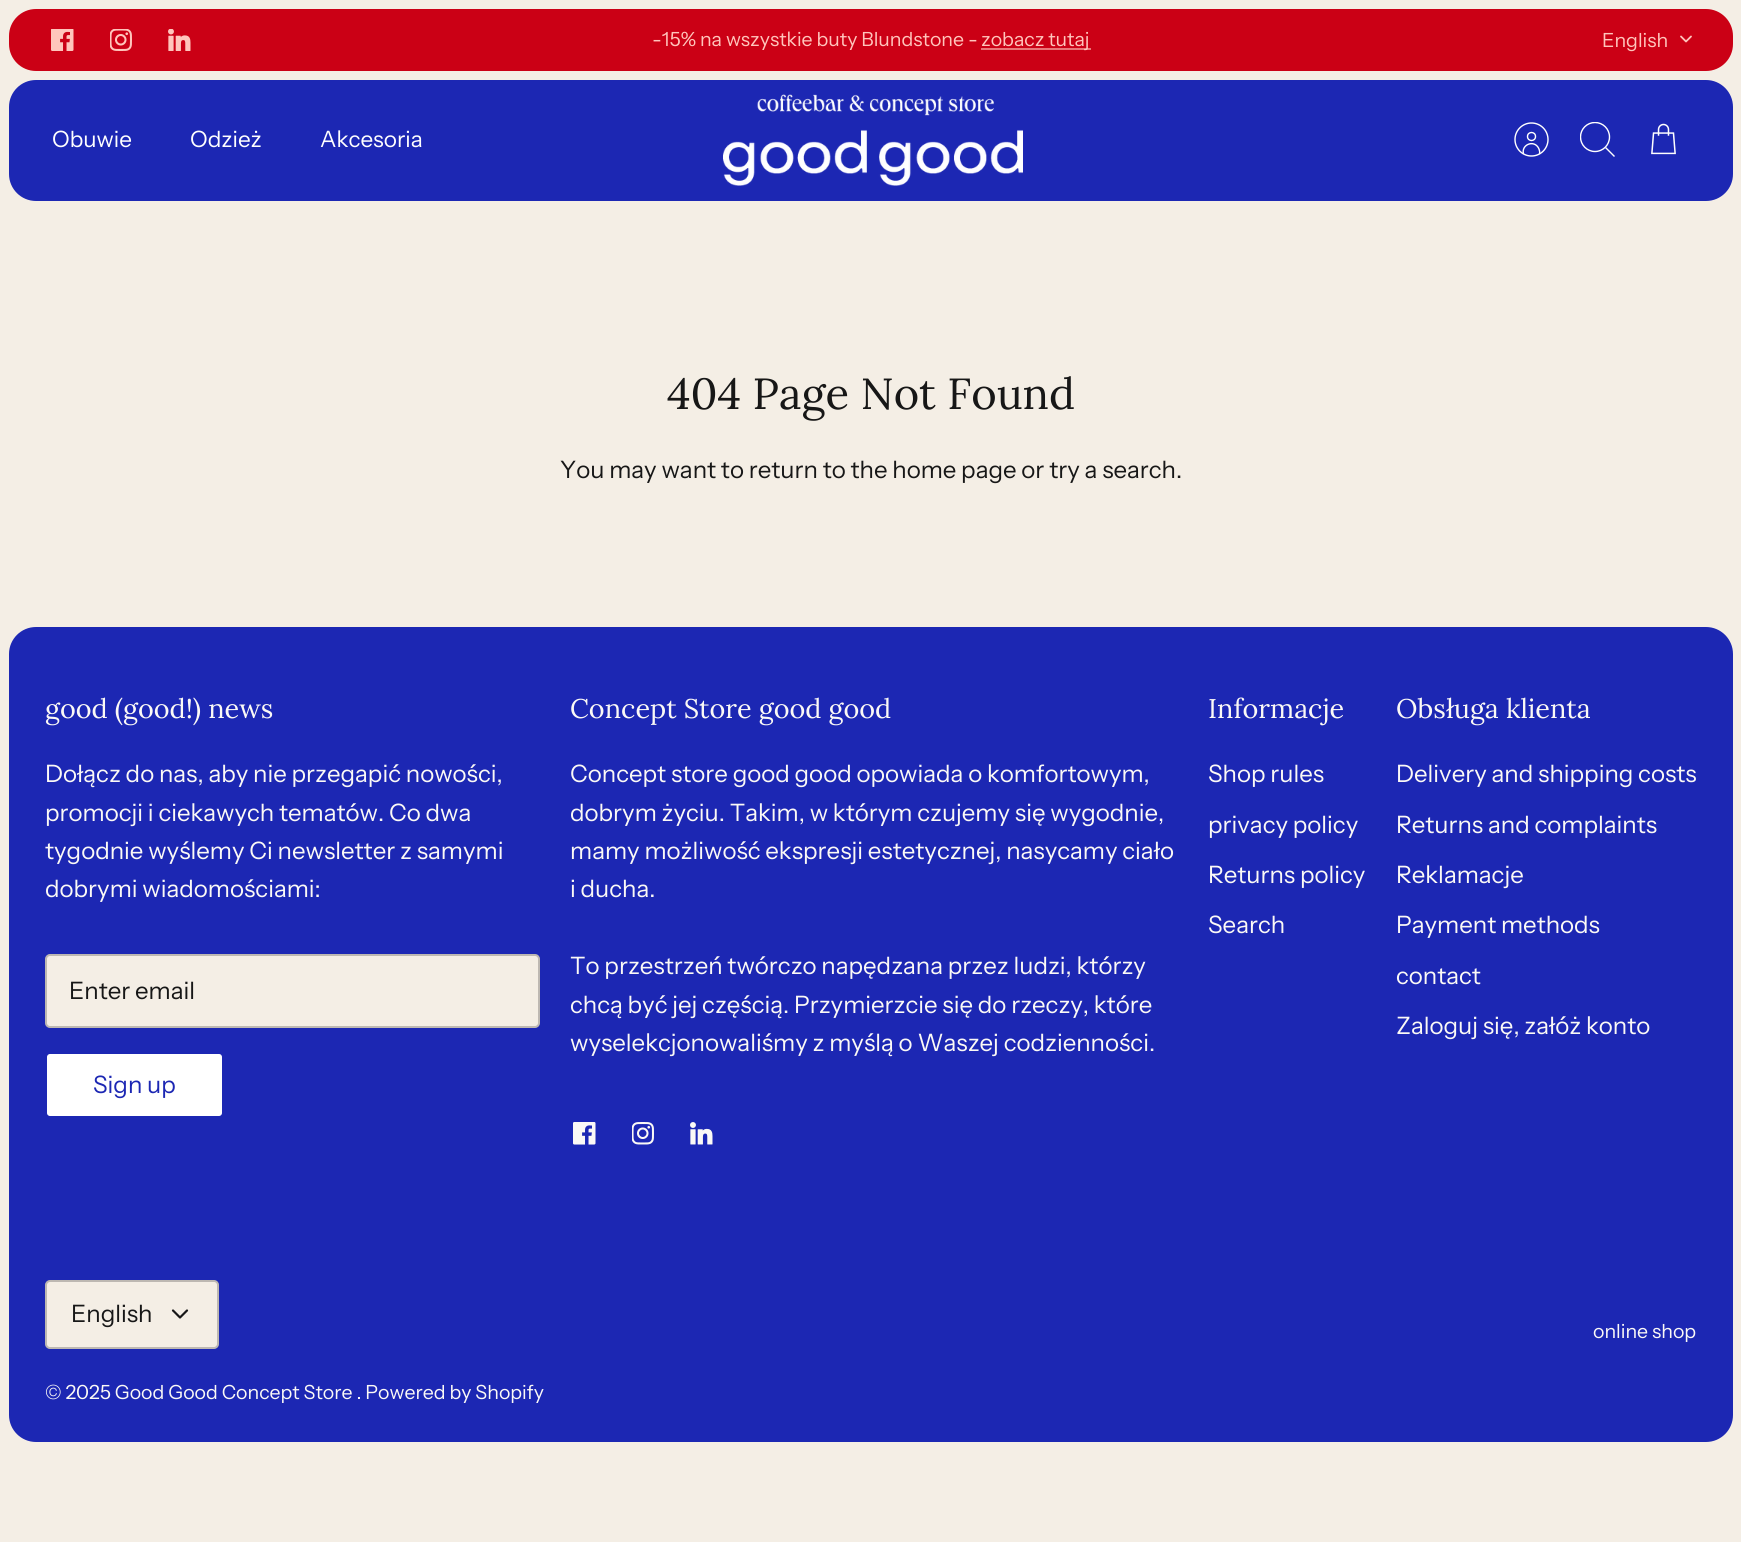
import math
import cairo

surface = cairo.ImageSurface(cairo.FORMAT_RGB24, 1741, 1542)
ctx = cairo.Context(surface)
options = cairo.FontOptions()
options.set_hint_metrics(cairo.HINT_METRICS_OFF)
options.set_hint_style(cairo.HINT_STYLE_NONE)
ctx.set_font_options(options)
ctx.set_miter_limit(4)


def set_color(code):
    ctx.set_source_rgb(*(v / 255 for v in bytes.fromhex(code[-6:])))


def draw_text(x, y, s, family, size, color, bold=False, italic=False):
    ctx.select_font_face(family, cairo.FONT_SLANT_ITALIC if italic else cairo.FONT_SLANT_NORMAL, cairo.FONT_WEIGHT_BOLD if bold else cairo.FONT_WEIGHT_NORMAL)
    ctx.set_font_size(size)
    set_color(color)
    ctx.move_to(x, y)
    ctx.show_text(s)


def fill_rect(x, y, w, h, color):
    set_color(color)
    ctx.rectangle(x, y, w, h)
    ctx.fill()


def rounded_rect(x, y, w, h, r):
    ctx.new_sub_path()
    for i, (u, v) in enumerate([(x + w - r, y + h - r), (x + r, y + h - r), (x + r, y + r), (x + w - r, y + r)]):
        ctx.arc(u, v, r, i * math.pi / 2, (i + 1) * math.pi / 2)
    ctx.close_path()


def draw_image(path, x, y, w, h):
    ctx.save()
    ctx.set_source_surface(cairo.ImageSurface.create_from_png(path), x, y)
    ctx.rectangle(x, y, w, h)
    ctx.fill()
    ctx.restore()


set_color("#f4eee5")
ctx.paint()
set_color("#cb0015")
rounded_rect(9, 9, 1724, 62, 27)
ctx.fill()
draw_image("assets/img1.png", 51, 29, 23, 22)
draw_image("assets/img2.png", 110, 29, 22, 22)
draw_image("assets/img3.png", 168, 29, 23, 22)
draw_text(652, 46, "-15% na wszystkie buty Blundstone -", "Instrument Sans", 19.5, "#ffc5bc")
fill_rect(981, 48, 110, 2, "#ea7679")
draw_text(981, 46, "zobacz tutaj", "Instrument Sans", 19.5, "#ffc5bc")
draw_text(1602, 47, "English", "Instrument Sans", 19.5, "#ffc5bc")
ctx.new_path()
ctx.move_to(1681, 36.5)
ctx.line_to(1686, 41.5)
ctx.line_to(1691, 36.5)
ctx.set_line_width(1.8)
ctx.set_line_cap(cairo.LINE_CAP_ROUND)
ctx.set_line_join(cairo.LINE_JOIN_ROUND)
ctx.stroke()
set_color("#1c27b3")
rounded_rect(9, 80, 1724, 121, 27)
ctx.fill()
draw_text(52, 147, "Obuwie", "Instrument Sans", 22.5, "#ffffff")
draw_text(190, 147, "Odzież", "Instrument Sans", 22.5, "#ffffff")
draw_text(320, 147, "Akcesoria", "Instrument Sans", 22.5, "#ffffff")
draw_image("assets/img4.png", 723, 94, 300, 92)
ctx.new_path()
ctx.move_to(1539.5, 154)
ctx.curve_to(1540, 152, 1539.5, 150, 1538.5, 148)
ctx.curve_to(1534, 139.5, 1521, 144.5, 1523.5, 154)
ctx.set_line_width(1.4)
ctx.set_line_cap(cairo.LINE_CAP_BUTT)
ctx.set_line_join(cairo.LINE_JOIN_MITER)
ctx.stroke()
ctx.arc(1531.5, 136.5, 4, 0, 2 * math.pi)
ctx.stroke()
ctx.arc(1531.5, 139.5, 16.5, 0, 2 * math.pi)
ctx.stroke()
ctx.save()
ctx.rectangle(1580, 122, 36, 36)
ctx.clip()
ctx.arc(1595, 137, 14.5, 0, 2 * math.pi)
ctx.stroke()
ctx.restore()
ctx.new_path()
ctx.move_to(1606, 148)
ctx.line_to(1614, 156)
ctx.set_line_cap(cairo.LINE_CAP_SQUARE)
ctx.stroke()
draw_image("assets/img5.png", 1651, 123, 25, 32)
draw_text(667, 409, "404 Page Not Found", "Lora", 43.5, "#171717")
draw_text(560, 478, "You may want to return to the home page or try a search.", "Instrument Sans", 24, "#171717")
set_color("#1c27b3")
rounded_rect(9, 627, 1724, 815, 27)
ctx.fill()
draw_text(45, 718, "good (good!) news", "Lora", 27, "#fbf9f6")
draw_text(45, 782, "Dołącz do nas, aby nie przegapić nowości,", "Instrument Sans", 24, "#fbf9f6")
draw_text(45, 821, "promocji i ciekawych tematów. Co dwa", "Instrument Sans", 24, "#fbf9f6")
draw_text(45, 859, "tygodnie wyślemy Ci newsletter z samymi", "Instrument Sans", 24, "#fbf9f6")
draw_text(45, 897, "dobrymi wiadomościami:", "Instrument Sans", 24, "#fbf9f6")
set_color("#f4eee5")
rounded_rect(46, 955, 493, 72, 4)
ctx.fill_preserve()
set_color("#bdb8b2")
ctx.set_line_width(2)
ctx.set_line_cap(cairo.LINE_CAP_BUTT)
ctx.stroke()
draw_text(69, 999, "Enter email", "Instrument Sans", 24, "#171717")
set_color("#ffffff")
rounded_rect(46, 1053, 177, 64, 4)
ctx.fill_preserve()
set_color("#1c27b3")
ctx.stroke()
draw_text(93, 1093, "Sign up", "Instrument Sans", 24, "#1c27b3")
draw_text(570, 718, "Concept Store good good", "Lora", 27, "#fbf9f6")
draw_text(570, 782, "Concept store good good opowiada o komfortowym,", "Instrument Sans", 24, "#fbf9f6")
draw_text(570, 821, "dobrym życiu. Takim, w którym czujemy się wygodnie,", "Instrument Sans", 24, "#fbf9f6")
draw_text(570, 859, "mamy możliwość ekspresji estetycznej, nasycamy ciało", "Instrument Sans", 24, "#fbf9f6")
draw_text(570, 897, "i ducha.", "Instrument Sans", 24, "#fbf9f6")
draw_text(570, 974, "To przestrzeń twórczo napędzana przez ludzi, którzy", "Instrument Sans", 24, "#fbf9f6")
draw_text(570, 1013, "chcą być jej częścią. Przymierzcie się do rzeczy, które", "Instrument Sans", 24, "#fbf9f6")
draw_text(570, 1051, "wyselekcjonowaliśmy z myślą o Waszej codzienności.", "Instrument Sans", 24, "#fbf9f6")
draw_image("assets/img6.png", 573, 1122, 23, 23)
draw_image("assets/img7.png", 632, 1122, 22, 23)
draw_image("assets/img8.png", 690, 1122, 23, 23)
draw_text(1208, 718, "Informacje", "Lora", 27, "#fbf9f6")
draw_text(1208, 782, "Shop rules", "Instrument Sans", 24, "#fbf9f6")
draw_text(1208, 833, "privacy policy", "Instrument Sans", 24, "#fbf9f6")
draw_text(1208, 883, "Returns policy", "Instrument Sans", 24, "#fbf9f6")
draw_text(1208, 933, "Search", "Instrument Sans", 24, "#fbf9f6")
draw_text(1396, 718, "Obsługa klienta", "Lora", 27, "#fbf9f6")
draw_text(1396, 782, "Delivery and shipping costs", "Instrument Sans", 24, "#fbf9f6")
draw_text(1396, 833, "Returns and complaints", "Instrument Sans", 24, "#fbf9f6")
draw_text(1396, 883, "Reklamacje", "Instrument Sans", 24, "#fbf9f6")
draw_text(1396, 933, "Payment methods", "Instrument Sans", 24, "#fbf9f6")
draw_text(1396, 984, "contact", "Instrument Sans", 24, "#fbf9f6")
draw_text(1396, 1034, "Zaloguj się, załóż konto", "Instrument Sans", 24, "#fbf9f6")
set_color("#f4eee5")
rounded_rect(46, 1281, 172, 67, 4)
ctx.fill_preserve()
set_color("#bdb8b2")
ctx.stroke()
draw_text(71, 1322, "English", "Instrument Sans", 24, "#171717")
ctx.new_path()
ctx.move_to(173, 1310.5)
ctx.line_to(180, 1317.5)
ctx.line_to(187, 1310.5)
ctx.set_line_width(2.2)
ctx.set_line_cap(cairo.LINE_CAP_ROUND)
ctx.set_line_join(cairo.LINE_JOIN_ROUND)
ctx.stroke()
draw_text(45, 1399, "© 2025 Good Good Concept Store . Powered by Shopify", "Instrument Sans", 19.5, "#fbf9f6")
draw_text(1593, 1338, "online shop", "Instrument Sans", 19.5, "#fbf9f6")
surface.write_to_png("output.png")
